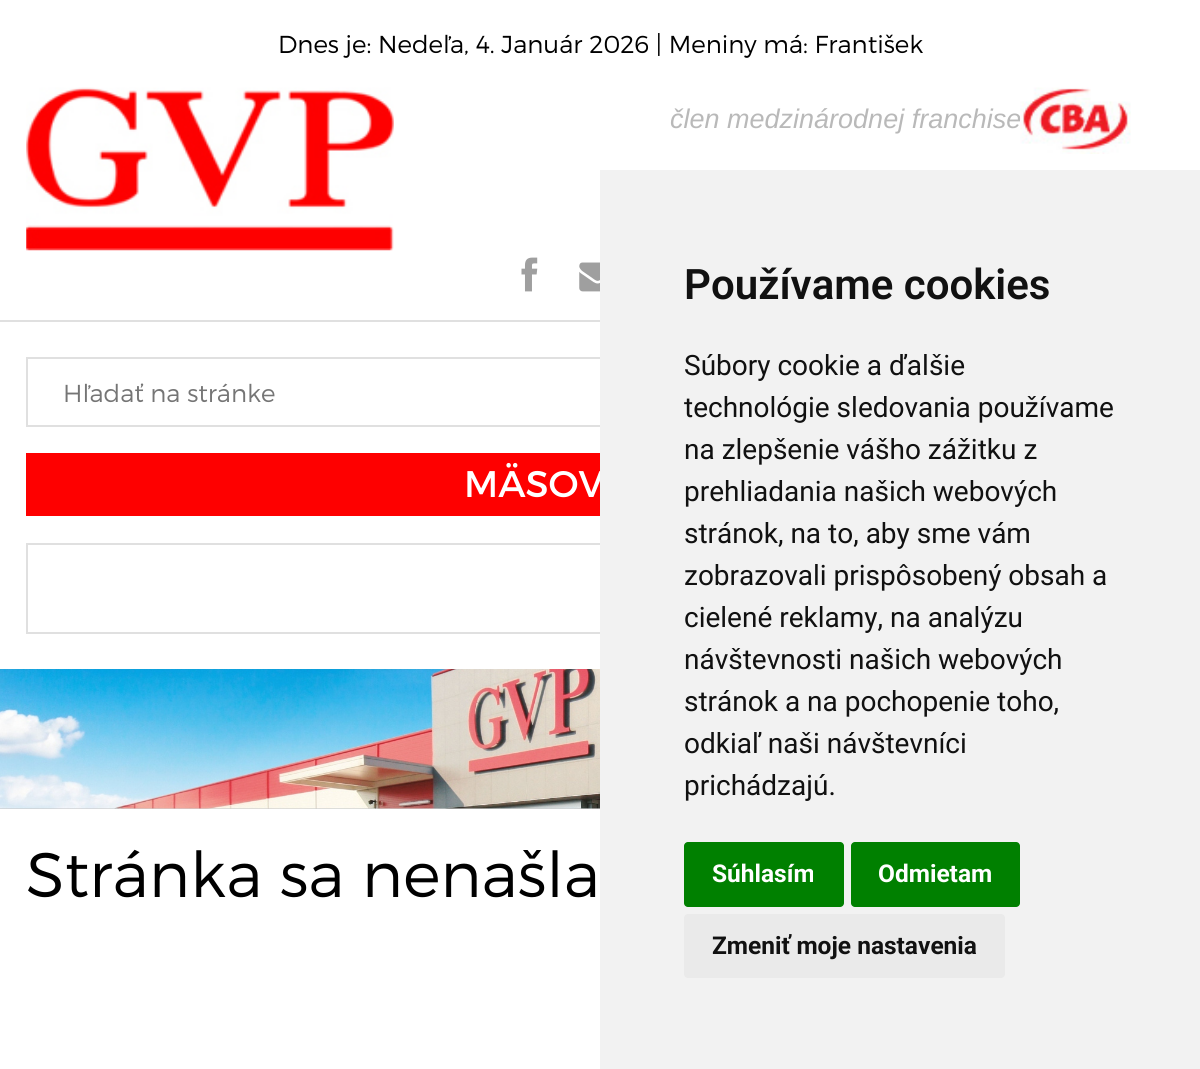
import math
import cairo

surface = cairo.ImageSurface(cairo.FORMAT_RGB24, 1200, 1069)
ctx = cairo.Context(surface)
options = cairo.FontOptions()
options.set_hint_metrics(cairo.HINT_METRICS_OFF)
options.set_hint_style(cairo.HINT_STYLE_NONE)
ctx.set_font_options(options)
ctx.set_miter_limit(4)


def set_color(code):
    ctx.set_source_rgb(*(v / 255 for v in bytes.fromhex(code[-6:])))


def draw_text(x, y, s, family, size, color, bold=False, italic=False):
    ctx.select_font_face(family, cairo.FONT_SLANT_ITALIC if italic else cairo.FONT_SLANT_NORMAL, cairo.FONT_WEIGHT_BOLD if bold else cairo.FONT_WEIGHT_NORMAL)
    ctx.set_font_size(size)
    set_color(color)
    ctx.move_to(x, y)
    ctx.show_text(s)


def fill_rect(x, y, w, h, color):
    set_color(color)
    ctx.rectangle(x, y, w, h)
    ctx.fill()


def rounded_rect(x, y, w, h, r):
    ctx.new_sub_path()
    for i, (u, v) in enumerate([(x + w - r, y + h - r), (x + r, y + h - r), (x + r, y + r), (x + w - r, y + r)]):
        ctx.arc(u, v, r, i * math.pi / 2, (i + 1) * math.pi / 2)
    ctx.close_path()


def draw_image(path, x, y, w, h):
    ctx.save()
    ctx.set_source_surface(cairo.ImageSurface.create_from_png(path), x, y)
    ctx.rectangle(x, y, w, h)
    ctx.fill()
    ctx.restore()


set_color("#ffffff")
ctx.paint()
fill_rect(0, 320, 600, 2, "#e0e0e0")
draw_text(278, 53, "Dnes je: Nedeľa, 4. Január 2026 | Meniny má: František", "Montserrat Light", 24.5, "#000000")
draw_image("assets/img1.png", 26, 87, 368, 164)
draw_text(670, 128, "člen medzinárodnej franchise", "Liberation Sans", 27, "#b9b9b9", italic=True)
draw_image("assets/img2.png", 1020, 87, 111, 67)
draw_image("assets/img3.png", 521, 257, 17, 35)
draw_image("assets/img4.png", 579, 262, 21, 30)
ctx.rectangle(27, 358, 1146, 68)
set_color("#e0e0e0")
ctx.stroke()
draw_text(63, 402, "Hľadať na stránke", "Montserrat Light", 24.5, "#757575")
fill_rect(26, 453, 574, 63, "#fe0000")
draw_text(464, 497, "MÄSOV", "Montserrat", 37, "#ffffff")
ctx.rectangle(27, 544, 1146, 89)
set_color("#e0e0e0")
ctx.stroke()
fill_rect(600, 170, 600, 899, "#f2f2f2")
draw_text(684, 299, "Používame cookies", "Roboto SemiBold", 42, "#111111")
draw_text(684, 375, "Súbory cookie a ďalšie", "Roboto", 28, "#111111")
draw_text(684, 417, "technológie sledovania používame", "Roboto", 28, "#111111")
draw_text(684, 459, "na zlepšenie vášho zážitku z", "Roboto", 28, "#111111")
draw_text(684, 501, "prehliadania našich webových", "Roboto", 28, "#111111")
draw_text(684, 543, "stránok, na to, aby sme vám", "Roboto", 28, "#111111")
draw_text(684, 585, "zobrazovali prispôsobený obsah a", "Roboto", 28, "#111111")
draw_text(684, 627, "cielené reklamy, na analýzu", "Roboto", 28, "#111111")
draw_text(684, 669, "návštevnosti našich webových", "Roboto", 28, "#111111")
draw_text(684, 711, "stránok a na pochopenie toho,", "Roboto", 28, "#111111")
draw_text(684, 753, "odkiaľ naši návštevníci", "Roboto", 28, "#111111")
draw_text(684, 795, "prichádzajú.", "Roboto", 28, "#111111")
set_color("#008000")
rounded_rect(684, 842, 160, 65, 4)
ctx.fill()
draw_text(712, 882, "Súhlasím", "Roboto", 24.5, "#ffffff", bold=True)
set_color("#008000")
rounded_rect(851, 842, 169, 65, 4)
ctx.fill()
draw_text(878, 882, "Odmietam", "Roboto", 24.5, "#ffffff", bold=True)
set_color("#eaeaea")
rounded_rect(684, 914, 321, 64, 4)
ctx.fill()
draw_text(712, 954, "Zmeniť moje nastavenia", "Roboto", 24.5, "#111111", bold=True)
fill_rect(0, 808, 600, 1, "#c5c5c5")
draw_image("assets/img5.png", 0, 669, 600, 140)
draw_text(26, 897, "Stránka sa nenašla", "Montserrat Light", 63, "#000000")
surface.write_to_png("output.png")
